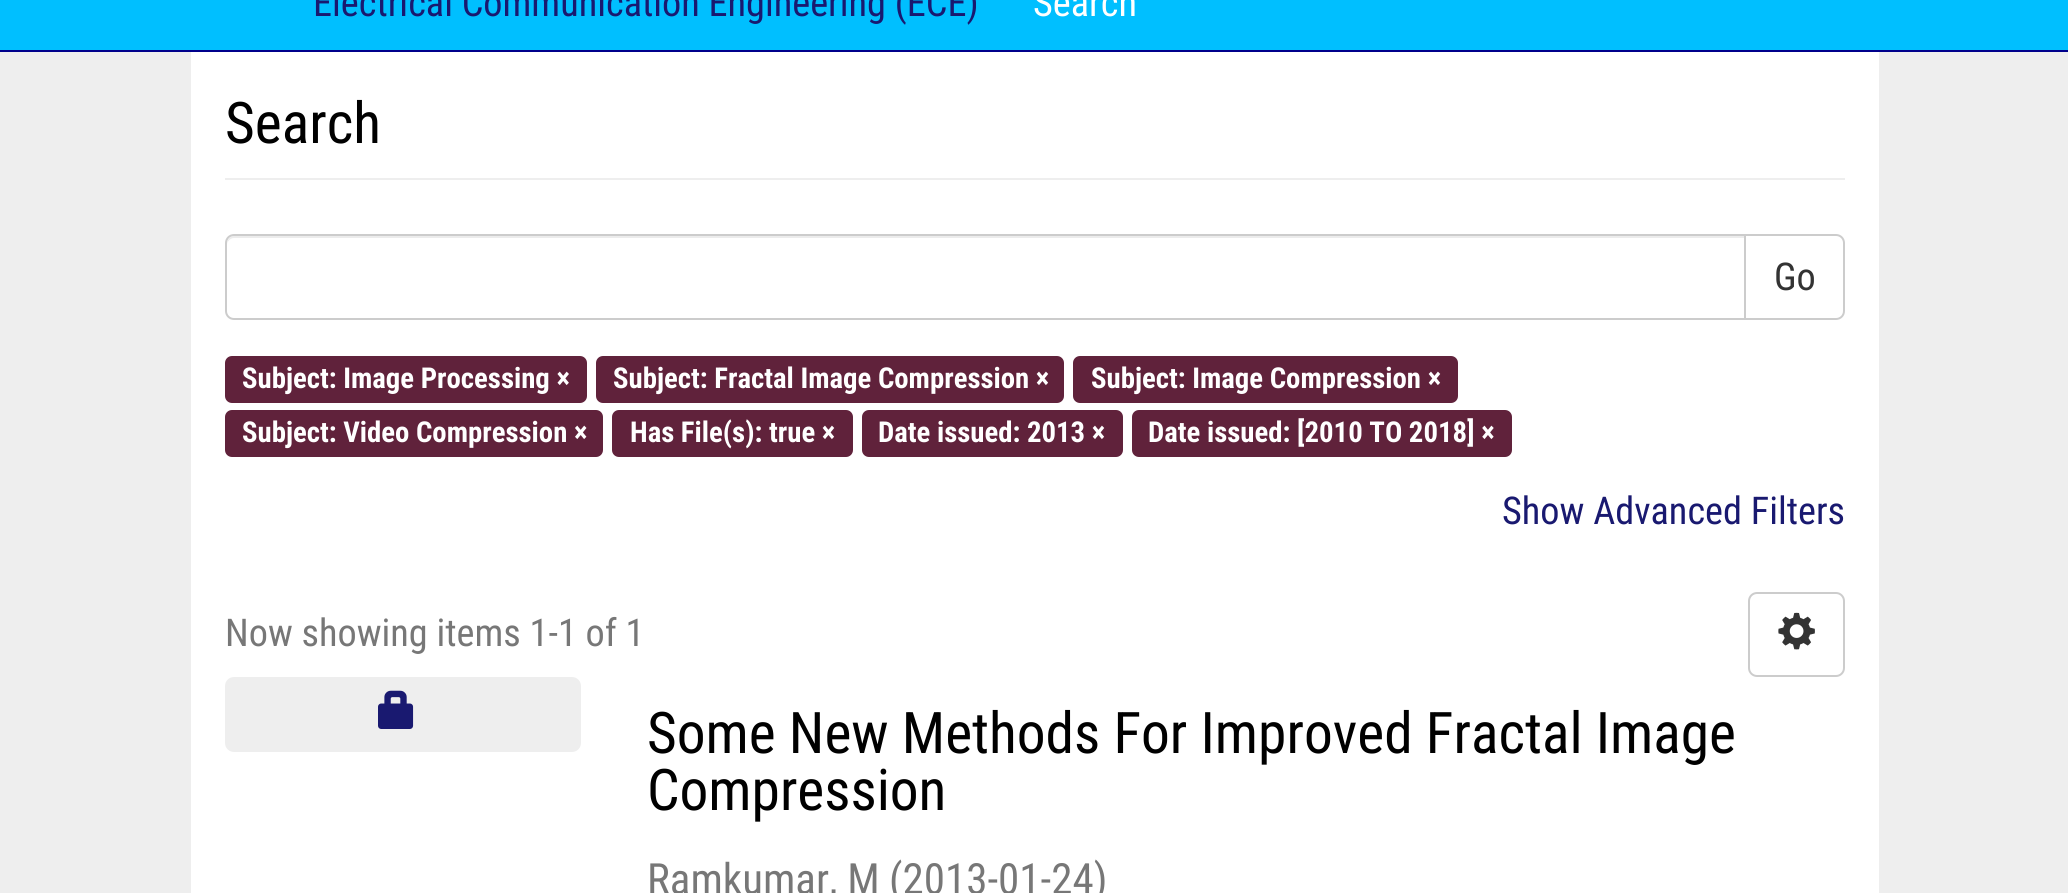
import math
import cairo

surface = cairo.ImageSurface(cairo.FORMAT_RGB24, 2068, 893)
ctx = cairo.Context(surface)
options = cairo.FontOptions()
options.set_hint_metrics(cairo.HINT_METRICS_OFF)
options.set_hint_style(cairo.HINT_STYLE_NONE)
ctx.set_font_options(options)
ctx.set_miter_limit(4)


def set_color(code):
    ctx.set_source_rgb(*(v / 255 for v in bytes.fromhex(code[-6:])))


def draw_text(x, y, s, family, size, color, bold=False, italic=False):
    ctx.select_font_face(family, cairo.FONT_SLANT_ITALIC if italic else cairo.FONT_SLANT_NORMAL, cairo.FONT_WEIGHT_BOLD if bold else cairo.FONT_WEIGHT_NORMAL)
    ctx.set_font_size(size)
    set_color(color)
    ctx.move_to(x, y)
    ctx.show_text(s)


def fill_rect(x, y, w, h, color):
    set_color(color)
    ctx.rectangle(x, y, w, h)
    ctx.fill()


def rounded_rect(x, y, w, h, r):
    ctx.new_sub_path()
    for i, (u, v) in enumerate([(x + w - r, y + h - r), (x + r, y + h - r), (x + r, y + r), (x + w - r, y + r)]):
        ctx.arc(u, v, r, i * math.pi / 2, (i + 1) * math.pi / 2)
    ctx.close_path()


def draw_image(path, x, y, w, h):
    ctx.save()
    ctx.set_source_surface(cairo.ImageSurface.create_from_png(path), x, y)
    ctx.rectangle(x, y, w, h)
    ctx.fill()
    ctx.restore()


set_color("#eeeeee")
ctx.paint()
fill_rect(0, 0, 2068, 50, "#00bfff")
fill_rect(0, 50, 2068, 2, "#00008b")
draw_text(313, 16, "Electrical Communication Engineering (ECE)", "Roboto Condensed", 38.25, "#191970")
draw_text(1033, 16, "Search", "Roboto Condensed", 38.25, "#ffffff")
fill_rect(191, 52, 1688, 841, "#ffffff")
fill_rect(225, 178, 1620, 2, "#eeeeee")
draw_text(225, 143, "Search", "Roboto Condensed", 57.4, "#000000")
ctx.new_path()
ctx.move_to(1745, 235)
ctx.line_to(1836, 235)
ctx.curve_to(1840.5, 235, 1844, 238.5, 1844, 243)
ctx.line_to(1844, 311)
ctx.curve_to(1844, 315.5, 1840.5, 319, 1836, 319)
ctx.line_to(1745, 319)
ctx.close_path()
set_color("#cccccc")
ctx.stroke()
set_color("#ffffff")
ctx.new_path()
ctx.move_to(234, 234)
ctx.line_to(1746, 234)
ctx.line_to(1746, 320)
ctx.line_to(234, 320)
ctx.curve_to(229, 320, 225, 316, 225, 311)
ctx.line_to(225, 243)
ctx.curve_to(225, 238, 229, 234, 234, 234)
ctx.close_path()
ctx.fill()
set_color("#ececec")
ctx.new_path()
ctx.move_to(234, 238)
ctx.line_to(1744, 238)
ctx.line_to(1744, 236)
ctx.line_to(234, 236)
ctx.curve_to(229, 236, 227, 241, 227, 245)
ctx.curve_to(227, 242, 230, 238, 234, 238)
ctx.close_path()
ctx.fill()
ctx.new_path()
ctx.move_to(234, 235)
ctx.line_to(1745, 235)
ctx.line_to(1745, 319)
ctx.line_to(234, 319)
ctx.curve_to(229.5, 319, 226, 315.5, 226, 311)
ctx.line_to(226, 243)
ctx.curve_to(226, 238.5, 229.5, 235, 234, 235)
ctx.close_path()
set_color("#cccccc")
ctx.stroke()
draw_text(1774, 290, "Go", "Roboto Condensed", 38.25, "#333333")
set_color("#60223b")
rounded_rect(225, 356, 362, 47, 7)
ctx.fill()
draw_text(242, 388, "Subject: Image Processing ×", "Roboto Condensed", 28.75, "#ffffff", bold=True)
set_color("#60223b")
rounded_rect(596, 356, 468, 47, 7)
ctx.fill()
draw_text(613, 388, "Subject: Fractal Image Compression ×", "Roboto Condensed", 28.75, "#ffffff", bold=True)
set_color("#60223b")
rounded_rect(1073, 356, 385, 47, 7)
ctx.fill()
draw_text(1091, 388, "Subject: Image Compression ×", "Roboto Condensed", 28.75, "#ffffff", bold=True)
set_color("#60223b")
rounded_rect(225, 410, 378, 47, 7)
ctx.fill()
draw_text(242, 442, "Subject: Video Compression ×", "Roboto Condensed", 28.75, "#ffffff", bold=True)
set_color("#60223b")
rounded_rect(612, 410, 241, 47, 7)
ctx.fill()
draw_text(630, 442, "Has File(s): true ×", "Roboto Condensed", 28.75, "#ffffff", bold=True)
set_color("#60223b")
rounded_rect(862, 410, 261, 47, 7)
ctx.fill()
draw_text(878, 442, "Date issued: 2013 ×", "Roboto Condensed", 28.75, "#ffffff", bold=True)
set_color("#60223b")
rounded_rect(1132, 410, 380, 47, 7)
ctx.fill()
draw_text(1148, 442, "Date issued: [2010 TO 2018] ×", "Roboto Condensed", 28.75, "#ffffff", bold=True)
draw_text(1502, 524, "Show Advanced Filters", "Roboto Condensed", 38.25, "#191970")
draw_text(225, 646, "Now showing items 1-1 of 1", "Roboto Condensed", 38.25, "#777777")
rounded_rect(1749, 593, 95, 83, 8)
set_color("#cccccc")
ctx.stroke()
draw_image("assets/img1.png", 1778, 612, 37, 38)
set_color("#eeeeee")
rounded_rect(225, 677, 356, 75, 9)
ctx.fill()
draw_image("assets/img2.png", 378, 690, 36, 39)
draw_text(647, 753, "Some New Methods For Improved Fractal Image", "Roboto Condensed", 57.4, "#000000")
draw_text(647, 810, "Compression", "Roboto Condensed", 57.4, "#000000")
draw_text(647, 894, "Ramkumar, M", "Roboto Condensed", 43, "#777777")
draw_text(889, 894, "(2013-01-24)", "Roboto Condensed", 43, "#777777")
surface.write_to_png("output.png")
